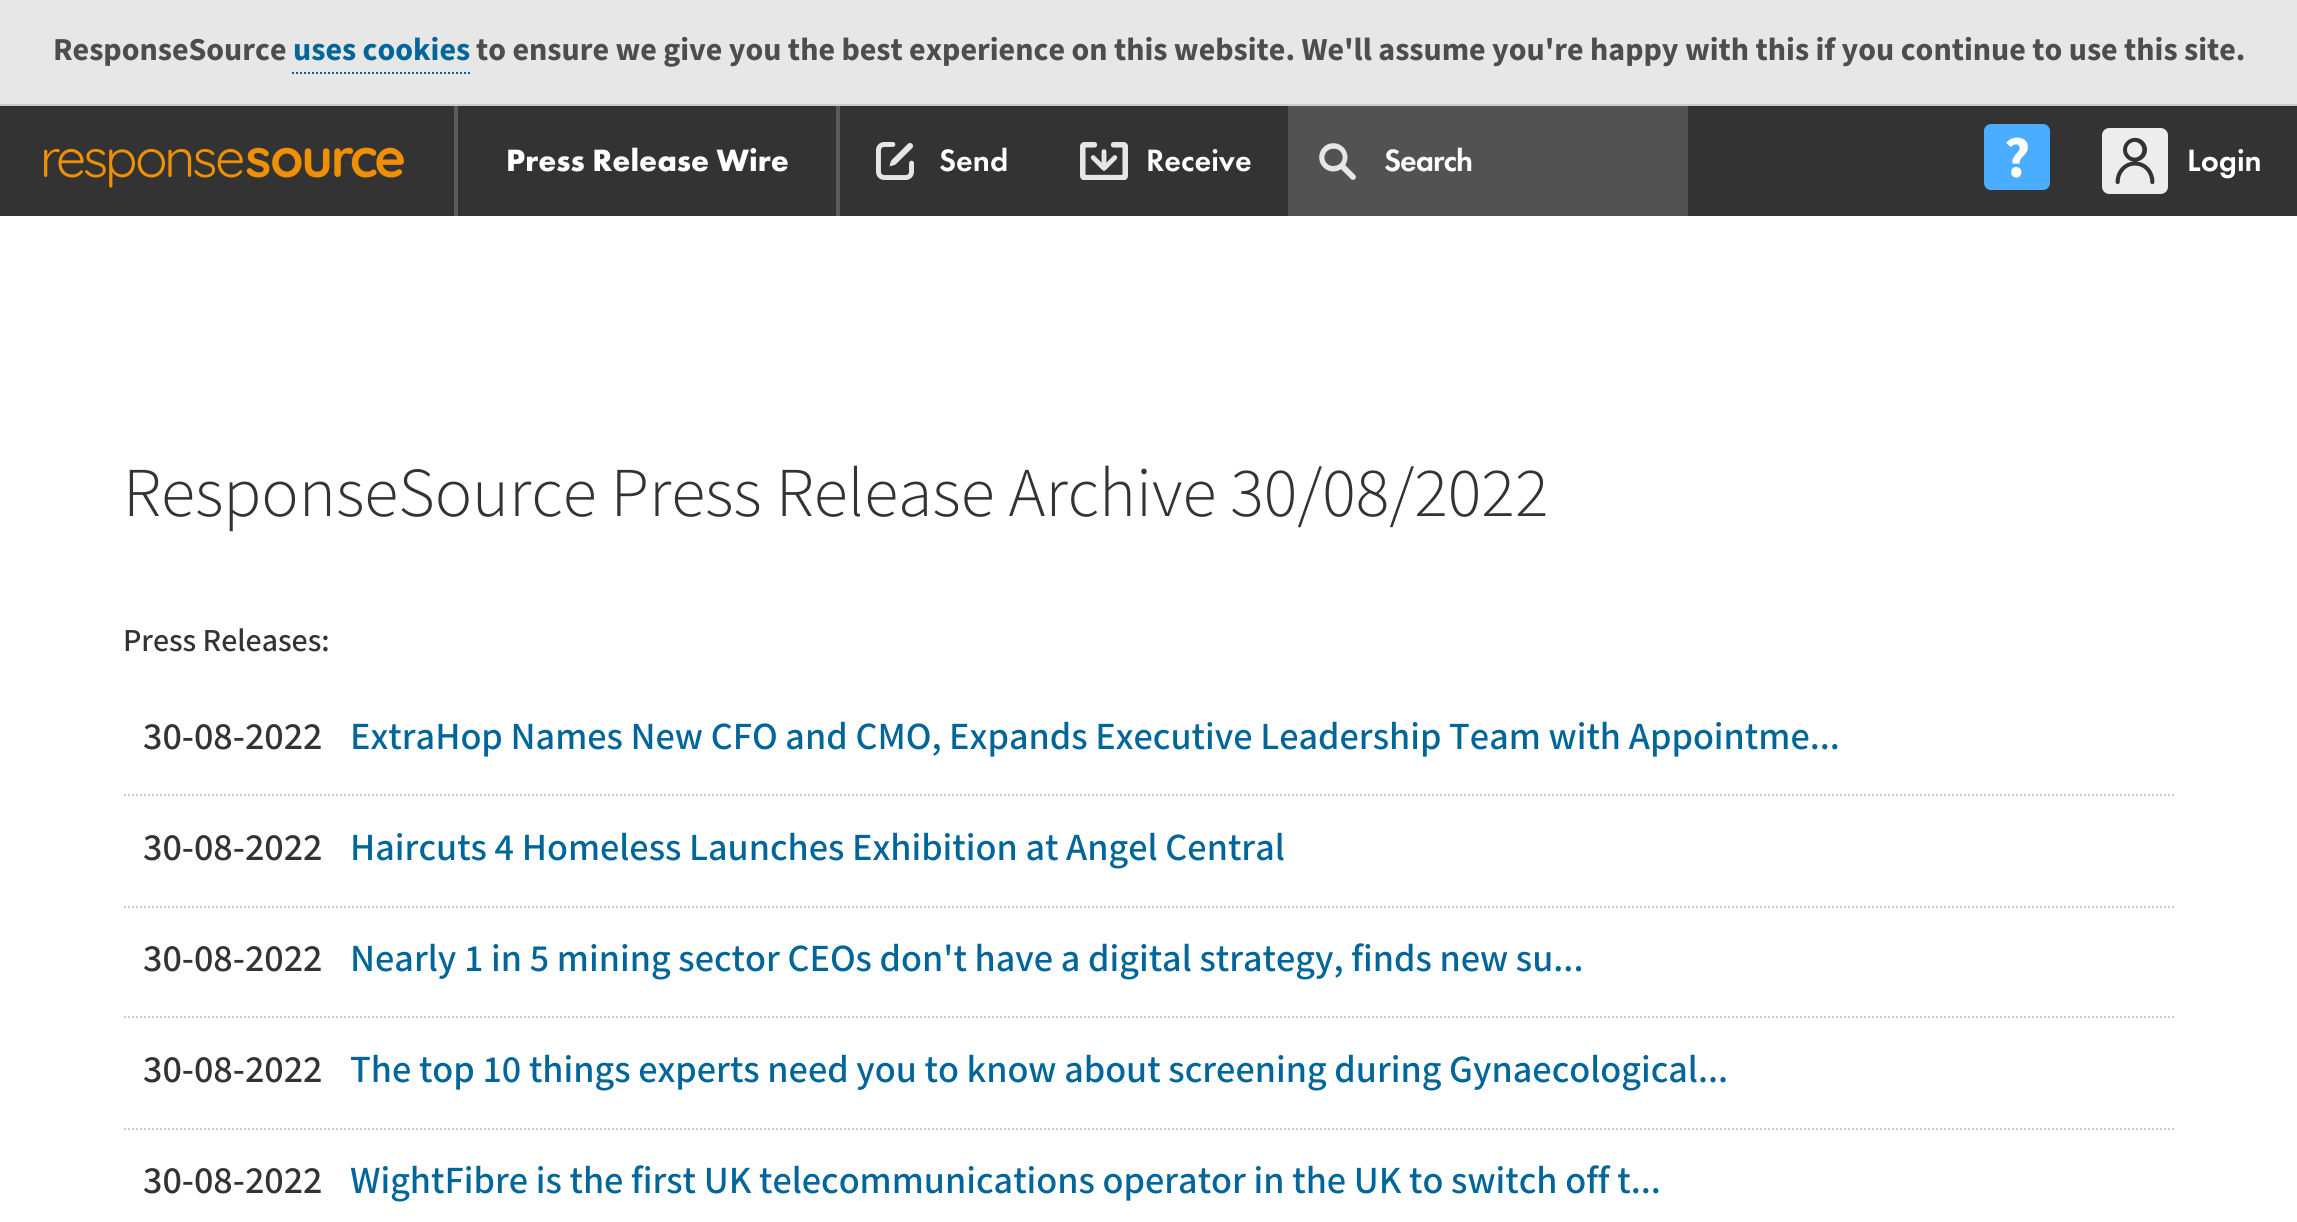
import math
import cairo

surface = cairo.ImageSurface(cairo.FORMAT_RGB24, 2297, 1222)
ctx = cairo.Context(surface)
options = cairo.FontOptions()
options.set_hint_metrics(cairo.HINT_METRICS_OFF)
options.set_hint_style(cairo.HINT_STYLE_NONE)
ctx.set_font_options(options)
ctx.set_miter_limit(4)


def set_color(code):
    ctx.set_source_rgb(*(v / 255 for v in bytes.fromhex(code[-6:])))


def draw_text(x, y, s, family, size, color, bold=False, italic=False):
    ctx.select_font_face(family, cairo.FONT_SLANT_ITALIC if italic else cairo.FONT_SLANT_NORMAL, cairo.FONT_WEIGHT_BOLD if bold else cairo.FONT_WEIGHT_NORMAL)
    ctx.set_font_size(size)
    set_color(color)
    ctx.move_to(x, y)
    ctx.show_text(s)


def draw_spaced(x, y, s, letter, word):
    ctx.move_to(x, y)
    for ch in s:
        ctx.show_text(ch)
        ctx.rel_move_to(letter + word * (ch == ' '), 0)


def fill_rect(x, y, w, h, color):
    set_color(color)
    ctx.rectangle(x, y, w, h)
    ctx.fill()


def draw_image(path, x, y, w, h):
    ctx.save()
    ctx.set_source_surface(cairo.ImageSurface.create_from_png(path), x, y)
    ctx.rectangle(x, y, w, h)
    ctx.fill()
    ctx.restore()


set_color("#ffffff")
ctx.paint()
fill_rect(0, 0, 2297, 104, "#e7e7e7")
fill_rect(0, 104, 2297, 2, "#cccccc")
draw_text(53, 60, "ResponseSource", "Mada", 32, "#4d4d4d", bold=True)
draw_text(293, 60, "uses cookies", "Mada", 32, "#006699", bold=True)
ctx.new_path()
ctx.move_to(292, 73)
ctx.line_to(470, 73)
ctx.set_dash([2, 2])
ctx.stroke()
draw_text(476, 60, "to ensure we give you the best experience on this website. We'll assume you're happy with this if you continue to use this site.", "Mada", 32, "#4d4d4d", bold=True)
fill_rect(0, 106, 2297, 110, "#333333")
fill_rect(454, 106, 4, 110, "#5b5b5b")
draw_image("assets/img1.png", 44, 147, 360, 41)
draw_text(506, 171, "Press Release Wire", "Futura PT", 32, "#ffffff", bold=True)
fill_rect(836, 106, 4, 110, "#5b5b5b")
draw_image("assets/img2.png", 876, 142, 38, 38)
draw_text(939, 171, "Send", "Futura PT Medium", 32, "#ffffff")
draw_image("assets/img3.png", 1080, 142, 48, 38)
draw_text(1146, 171, "Receive", "Futura PT Medium", 32, "#ffffff")
fill_rect(1288, 106, 400, 110, "#525252")
draw_image("assets/img4.png", 1319, 143, 37, 37)
set_color("#ffffff")
draw_spaced(1384, 171, "Search", -1, 0)
draw_image("assets/img5.png", 1984, 124, 66, 66)
draw_image("assets/img6.png", 2102, 128, 66, 66)
draw_text(2187, 171, "Login", "Futura PT Medium", 32, "#ffffff")
draw_text(123, 516, "ResponseSource Press Release Archive 30/08/2022", "Mada Light", 70, "#333333")
draw_text(123, 651, "Press Releases:", "Mada Medium", 32, "#333333")
ctx.new_path()
ctx.move_to(124, 795)
ctx.line_to(2176, 795)
set_color("#cccccc")
ctx.stroke()
draw_text(143, 749, "30-08-2022", "Mada Medium", 38.4, "#333333")
draw_text(350, 749, "ExtraHop Names New CFO and CMO, Expands Executive Leadership Team with Appointme...", "Mada Medium", 38.4, "#006699")
ctx.new_path()
ctx.move_to(124, 907)
ctx.line_to(2176, 907)
set_color("#cccccc")
ctx.stroke()
draw_text(143, 860, "30-08-2022", "Mada Medium", 38.4, "#333333")
draw_text(350, 860, "Haircuts 4 Homeless Launches Exhibition at Angel Central", "Mada Medium", 38.4, "#006699")
ctx.new_path()
ctx.move_to(124, 1017)
ctx.line_to(2176, 1017)
set_color("#cccccc")
ctx.stroke()
draw_text(143, 971, "30-08-2022", "Mada Medium", 38.4, "#333333")
draw_text(350, 971, "Nearly 1 in 5 mining sector CEOs don't have a digital strategy, finds new su...", "Mada Medium", 38.4, "#006699")
ctx.new_path()
ctx.move_to(124, 1129)
ctx.line_to(2176, 1129)
set_color("#cccccc")
ctx.stroke()
draw_text(143, 1082, "30-08-2022", "Mada Medium", 38.4, "#333333")
draw_text(350, 1082, "The top 10 things experts need you to know about screening during Gynaecological...", "Mada Medium", 38.4, "#006699")
draw_text(143, 1193, "30-08-2022", "Mada Medium", 38.4, "#333333")
draw_text(350, 1193, "WightFibre is the first UK telecommunications operator in the UK to switch off t...", "Mada Medium", 38.4, "#006699")
surface.write_to_png("output.png")
